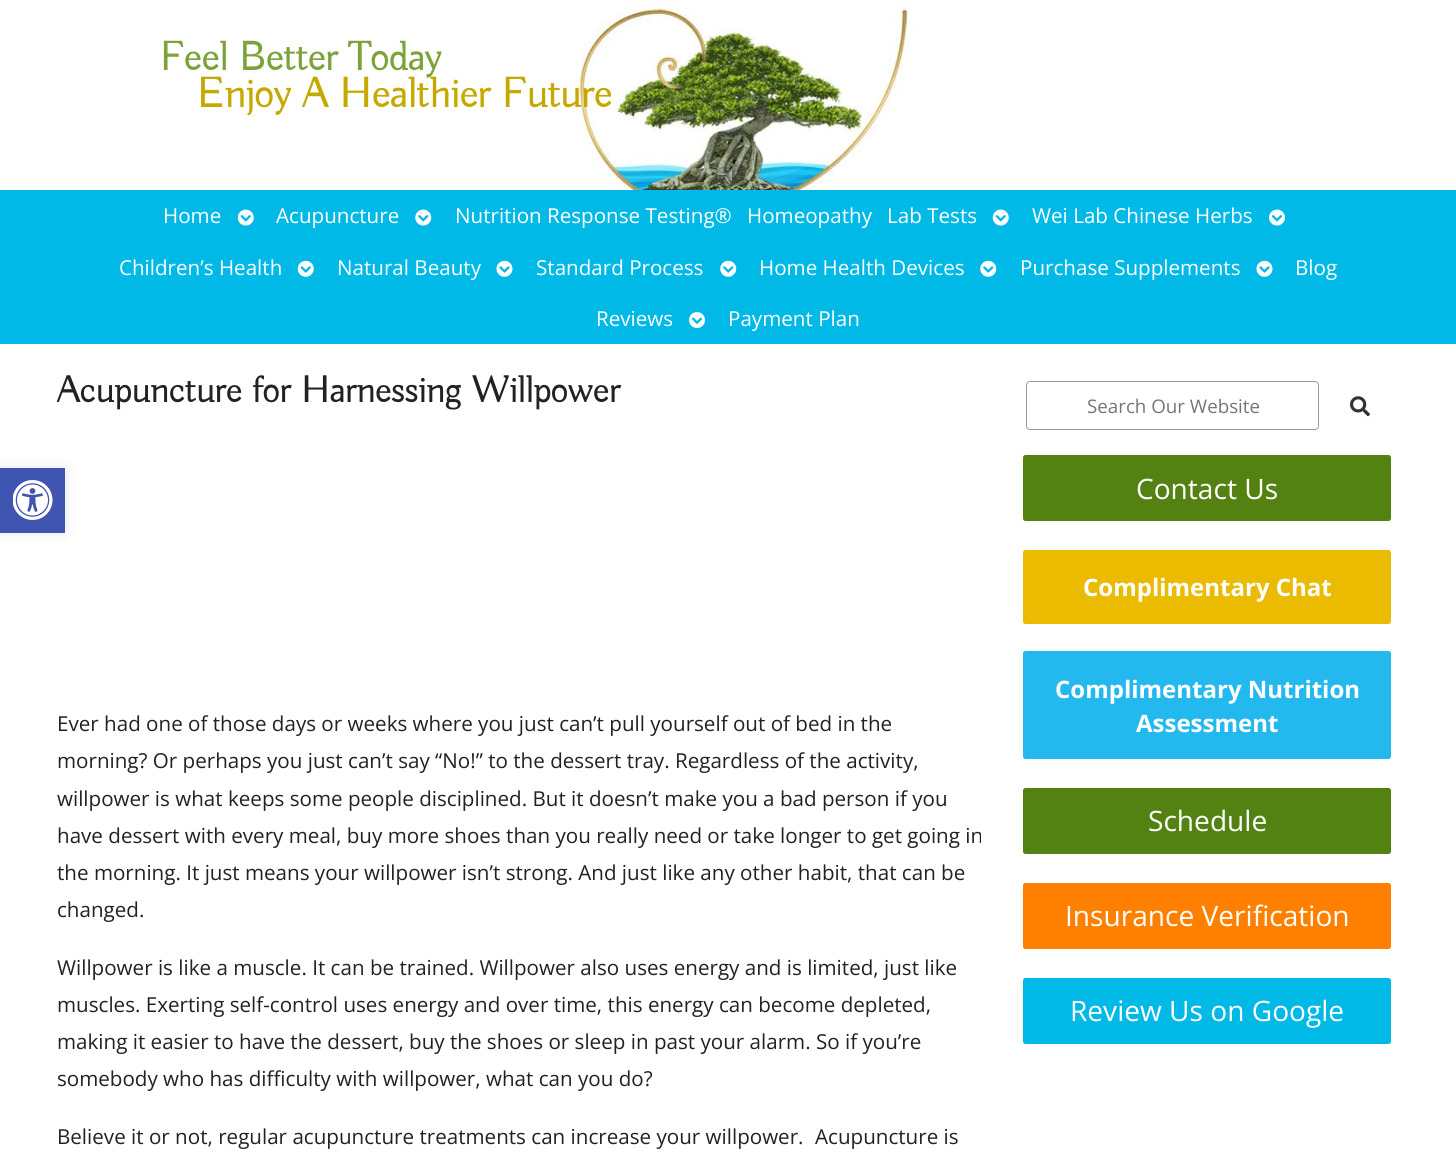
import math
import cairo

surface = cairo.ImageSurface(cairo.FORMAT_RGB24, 1456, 1170)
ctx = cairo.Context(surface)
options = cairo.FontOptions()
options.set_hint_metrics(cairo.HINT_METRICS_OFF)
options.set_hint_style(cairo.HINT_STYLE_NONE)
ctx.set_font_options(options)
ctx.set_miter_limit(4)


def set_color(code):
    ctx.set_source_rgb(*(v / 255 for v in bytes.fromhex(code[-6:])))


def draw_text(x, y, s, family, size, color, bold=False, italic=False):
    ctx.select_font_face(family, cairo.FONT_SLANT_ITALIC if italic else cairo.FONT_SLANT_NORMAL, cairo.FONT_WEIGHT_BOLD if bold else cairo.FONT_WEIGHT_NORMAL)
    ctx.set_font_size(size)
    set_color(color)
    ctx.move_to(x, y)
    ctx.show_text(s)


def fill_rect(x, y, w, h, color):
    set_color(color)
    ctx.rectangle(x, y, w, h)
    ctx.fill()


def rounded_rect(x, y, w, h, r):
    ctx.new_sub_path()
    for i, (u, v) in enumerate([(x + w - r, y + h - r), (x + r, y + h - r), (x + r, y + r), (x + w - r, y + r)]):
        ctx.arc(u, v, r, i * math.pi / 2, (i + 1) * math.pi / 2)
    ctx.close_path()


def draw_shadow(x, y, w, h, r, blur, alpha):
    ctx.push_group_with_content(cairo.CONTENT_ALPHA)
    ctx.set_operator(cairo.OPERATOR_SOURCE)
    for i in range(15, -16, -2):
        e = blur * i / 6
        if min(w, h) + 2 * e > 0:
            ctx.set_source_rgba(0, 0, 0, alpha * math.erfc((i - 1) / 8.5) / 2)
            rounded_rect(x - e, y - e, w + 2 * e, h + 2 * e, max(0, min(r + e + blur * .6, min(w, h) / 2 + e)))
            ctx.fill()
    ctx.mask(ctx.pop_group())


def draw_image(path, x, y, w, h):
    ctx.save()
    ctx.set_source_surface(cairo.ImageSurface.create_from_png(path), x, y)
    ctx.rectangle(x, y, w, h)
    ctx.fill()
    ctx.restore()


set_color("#ffffff")
ctx.paint()
set_color("#000000")
draw_shadow(0, 468, 65, 65, 0, 6, 0.1)
fill_rect(0, 468, 65, 65, "#4054b2")
draw_image("assets/img1.png", 13, 480, 40, 40)
draw_text(160, 70, "Feel Better Today", "Buda", 41, "#7ba33a", bold=True)
draw_image("assets/img2.png", 573, 2, 344, 188)
draw_text(197, 107, "Enjoy A Healthier Future", "Buda", 42.5, "#c6a900", bold=True)
fill_rect(0, 190, 1456, 154, "#00b9e7")
draw_text(163, 223, "Home", "Open Sans", 20.6, "#ffffff")
draw_image("assets/img3.png", 237, 209, 17, 17)
draw_text(276, 223, "Acupuncture", "Open Sans", 20.6, "#ffffff")
draw_image("assets/img4.png", 415, 209, 17, 17)
draw_text(455, 223, "Nutrition Response Testing®", "Open Sans", 20.6, "#ffffff")
draw_text(747, 223, "Homeopathy", "Open Sans", 20.6, "#ffffff")
draw_text(887, 223, "Lab Tests", "Open Sans", 20.6, "#ffffff")
draw_image("assets/img3.png", 992, 209, 17, 17)
draw_text(1032, 223, "Wei Lab Chinese Herbs", "Open Sans", 20.6, "#ffffff")
draw_image("assets/img5.png", 1269, 209, 16, 17)
draw_text(119, 275, "Children’s Health", "Open Sans", 20.6, "#ffffff")
draw_image("assets/img6.png", 297, 260, 17, 17)
draw_text(337, 275, "Natural Beauty", "Open Sans", 20.6, "#ffffff")
draw_image("assets/img7.png", 496, 260, 17, 17)
draw_text(536, 275, "Standard Process", "Open Sans", 20.6, "#ffffff")
draw_image("assets/img8.png", 720, 260, 17, 17)
draw_text(759, 275, "Home Health Devices", "Open Sans", 20.6, "#ffffff")
draw_image("assets/img8.png", 980, 260, 17, 17)
draw_text(1020, 275, "Purchase Supplements", "Open Sans", 20.6, "#ffffff")
draw_image("assets/img7.png", 1256, 260, 17, 17)
draw_text(1295, 275, "Blog", "Open Sans", 20.6, "#ffffff")
draw_text(596, 326, "Reviews", "Open Sans", 20.6, "#ffffff")
draw_image("assets/img9.png", 689, 312, 16, 16)
draw_text(728, 326, "Payment Plan", "Open Sans", 20.6, "#ffffff")
draw_text(57, 402, "Acupuncture for Harnessing Willpower", "Buda", 37.5, "#222222", bold=True)
draw_text(57, 731, "Ever had one of those days or weeks where you just can’t pull yourself out of bed in the", "Open Sans", 20.6, "#222222")
draw_text(57, 768, "morning? Or perhaps you just can’t say “No!” to the dessert tray. Regardless of the activity,", "Open Sans", 20.6, "#222222")
draw_text(57, 806, "willpower is what keeps some people disciplined. But it doesn’t make you a bad person if you", "Open Sans", 20.6, "#222222")
draw_text(57, 843, "have dessert with every meal, buy more shoes than you really need or take longer to get going in", "Open Sans", 20.6, "#222222")
draw_text(57, 880, "the morning. It just means your willpower isn’t strong. And just like any other habit, that can be", "Open Sans", 20.6, "#222222")
draw_text(57, 917, "changed.", "Open Sans", 20.6, "#222222")
draw_text(57, 975, "Willpower is like a muscle. It can be trained. Willpower also uses energy and is limited, just like", "Open Sans", 20.6, "#222222")
draw_text(57, 1012, "muscles. Exerting self-control uses energy and over time, this energy can become depleted,", "Open Sans", 20.6, "#222222")
draw_text(57, 1049, "making it easier to have the dessert, buy the shoes or sleep in past your alarm. So if you’re", "Open Sans", 20.6, "#222222")
draw_text(57, 1086, "somebody who has difficulty with willpower, what can you do?", "Open Sans", 20.6, "#222222")
draw_text(57, 1144, "Believe it or not, regular acupuncture treatments can increase your willpower.", "Open Sans", 20.6, "#222222")
draw_text(815, 1144, "Acupuncture is", "Open Sans", 20.6, "#222222")
rounded_rect(1026.5, 381.5, 292, 48, 3.5)
set_color("#999999")
ctx.set_line_width(1)
ctx.stroke()
draw_text(1087, 413, "Search Our Website", "Open Sans", 18.75, "#757575")
draw_image("assets/img10.png", 1350, 396, 20, 21)
set_color("#538213")
rounded_rect(1023, 455, 368, 66, 2.5)
ctx.fill()
draw_text(1136, 499, "Contact Us", "Open Sans", 28.1, "#ffffff")
set_color("#eabb00")
rounded_rect(1023, 550, 368, 74, 2.5)
ctx.fill()
draw_text(1083, 596, "Complimentary Chat", "Open Sans", 24, "#ffffff", bold=True)
set_color("#23b9ef")
rounded_rect(1023, 651, 368, 108, 2.5)
ctx.fill()
draw_text(1055, 698, "Complimentary Nutrition", "Open Sans", 24, "#ffffff", bold=True)
draw_text(1136, 732, "Assessment", "Open Sans", 24, "#ffffff", bold=True)
set_color("#538213")
rounded_rect(1023, 788, 368, 66, 2.5)
ctx.fill()
draw_text(1148, 831, "Schedule", "Open Sans", 28.1, "#ffffff")
set_color("#ff8000")
rounded_rect(1023, 883, 368, 66, 2.5)
ctx.fill()
draw_text(1065, 926, "Insurance Verification", "Open Sans", 28.1, "#ffffff")
set_color("#00b9e7")
rounded_rect(1023, 978, 368, 66, 2.5)
ctx.fill()
draw_text(1070, 1021, "Review Us on Google", "Open Sans", 28.1, "#ffffff")
surface.write_to_png("output.png")
